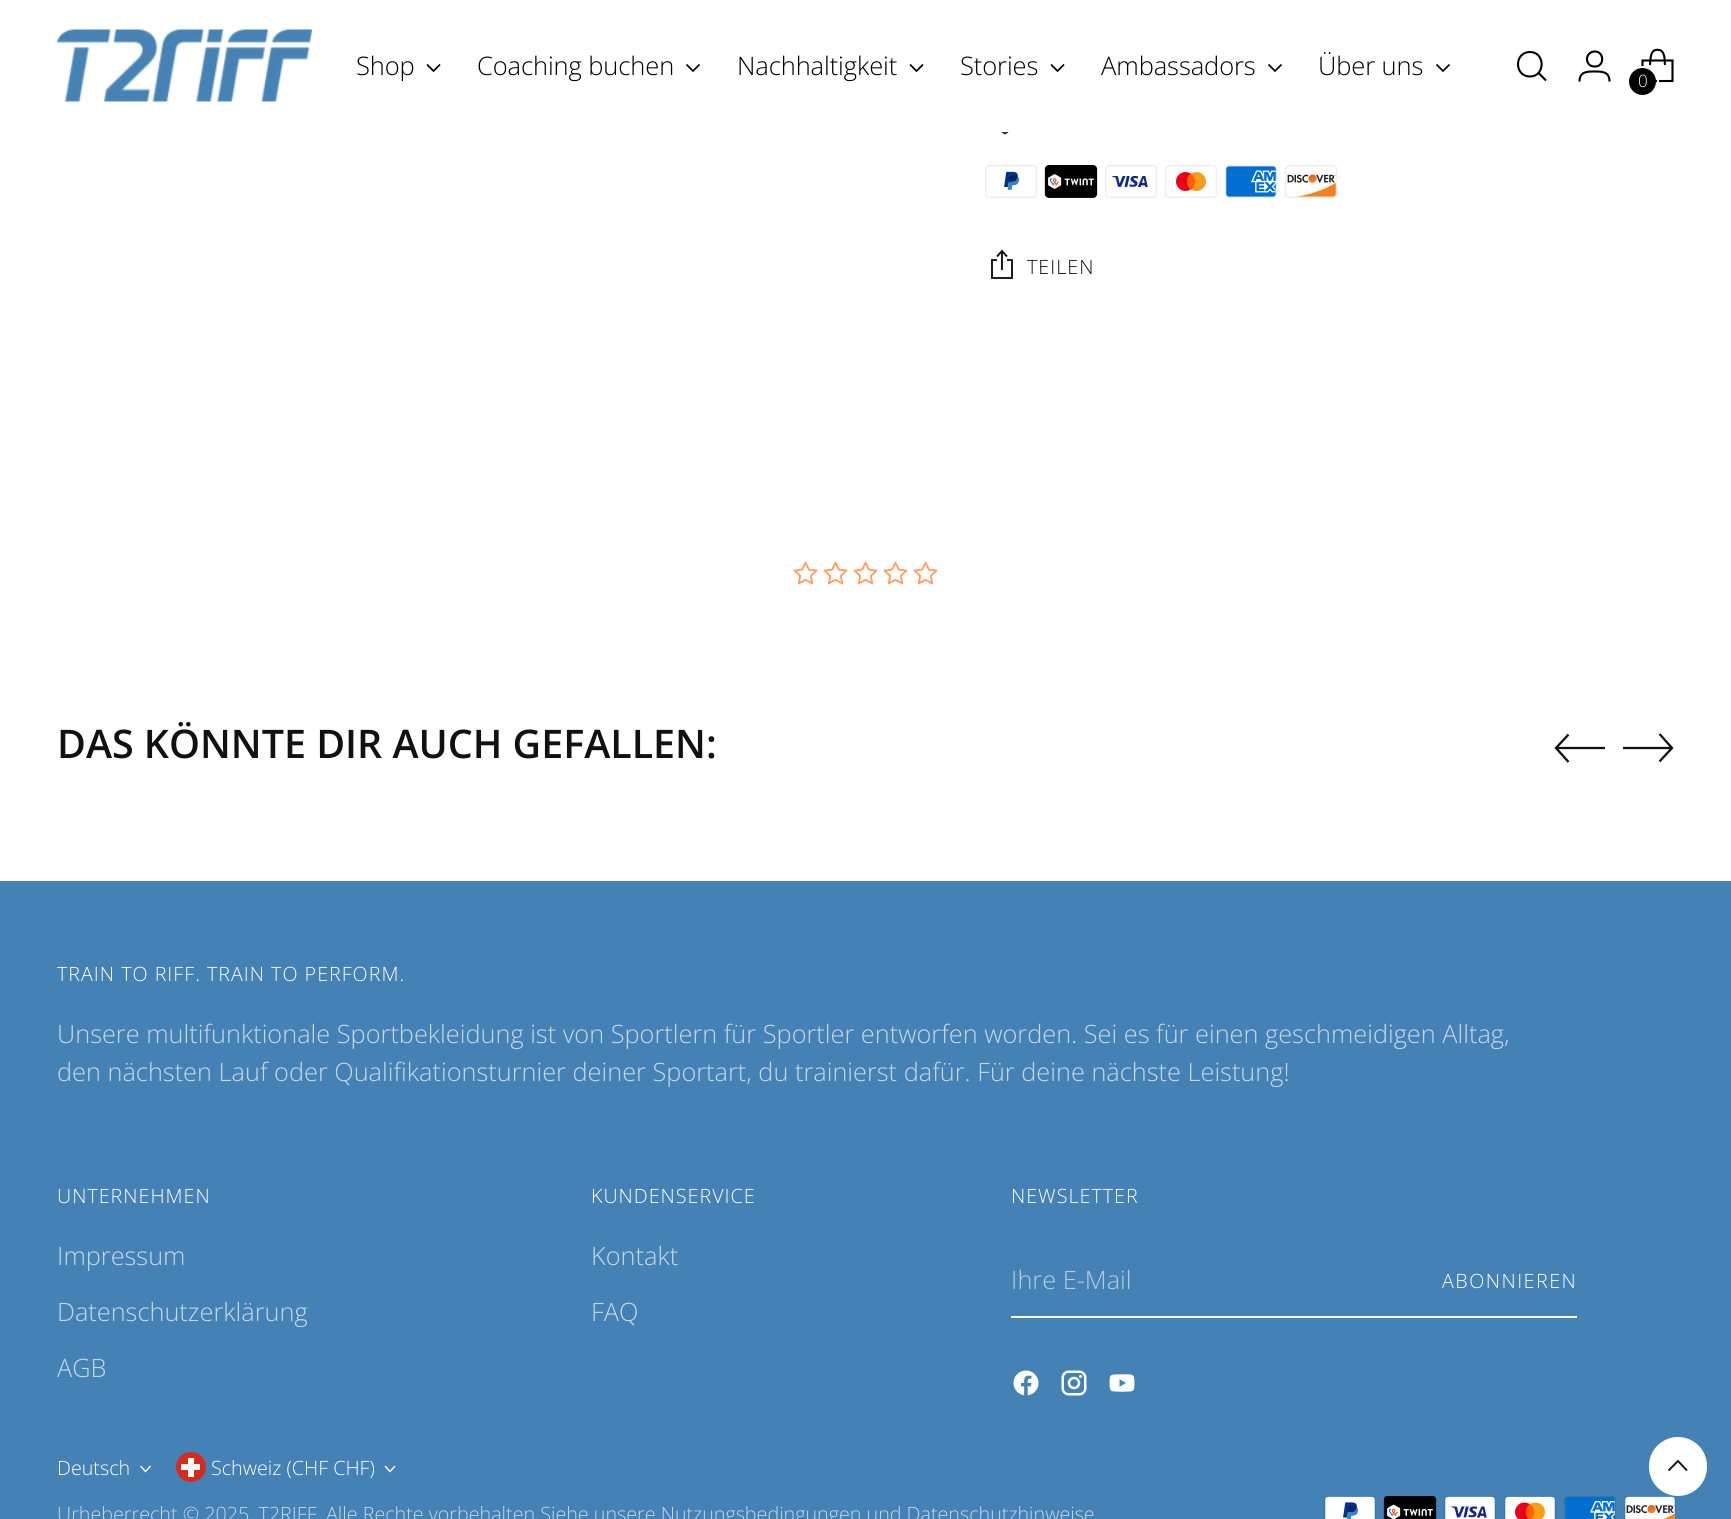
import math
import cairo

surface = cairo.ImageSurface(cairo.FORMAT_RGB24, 1731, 1519)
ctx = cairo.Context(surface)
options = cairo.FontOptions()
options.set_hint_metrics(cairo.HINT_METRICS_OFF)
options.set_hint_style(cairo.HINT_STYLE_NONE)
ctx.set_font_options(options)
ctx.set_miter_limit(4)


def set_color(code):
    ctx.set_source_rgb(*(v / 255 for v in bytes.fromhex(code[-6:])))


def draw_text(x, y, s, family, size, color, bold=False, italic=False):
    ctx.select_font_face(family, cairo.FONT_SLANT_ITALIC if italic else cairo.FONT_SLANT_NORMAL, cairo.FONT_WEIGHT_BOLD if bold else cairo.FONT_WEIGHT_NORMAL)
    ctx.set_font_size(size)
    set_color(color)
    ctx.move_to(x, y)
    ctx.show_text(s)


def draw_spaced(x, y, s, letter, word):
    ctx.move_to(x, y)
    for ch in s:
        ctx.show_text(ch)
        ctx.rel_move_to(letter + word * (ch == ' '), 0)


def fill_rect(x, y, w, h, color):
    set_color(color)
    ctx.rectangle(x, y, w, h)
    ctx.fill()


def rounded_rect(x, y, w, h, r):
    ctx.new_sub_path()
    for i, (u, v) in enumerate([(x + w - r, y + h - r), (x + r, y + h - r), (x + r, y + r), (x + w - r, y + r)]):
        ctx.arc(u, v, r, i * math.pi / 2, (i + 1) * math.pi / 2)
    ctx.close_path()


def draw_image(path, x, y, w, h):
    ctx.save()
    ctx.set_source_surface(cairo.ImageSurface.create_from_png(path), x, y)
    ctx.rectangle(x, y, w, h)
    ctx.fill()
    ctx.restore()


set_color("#ffffff")
ctx.paint()
draw_image("assets/img1.png", 57, 29, 255, 73)
ctx.select_font_face("Open Sans Light")
ctx.set_font_size(25.5)
set_color("#000000")
draw_spaced(356, 75, "Shop", -0.1, 0)
ctx.new_path()
ctx.move_to(427, 64.5)
ctx.line_to(433.5, 71)
ctx.line_to(440, 64.5)
ctx.set_line_width(1.7)
ctx.stroke()
draw_spaced(477, 75, "Coaching buchen", -0.1, 0)
ctx.new_path()
ctx.move_to(686.5, 64.5)
ctx.line_to(693, 71)
ctx.line_to(699.5, 64.5)
ctx.stroke()
draw_spaced(737, 75, "Nachhaltigkeit", -0.1, 0)
ctx.new_path()
ctx.move_to(910, 64.5)
ctx.line_to(916.5, 71)
ctx.line_to(923, 64.5)
ctx.stroke()
draw_spaced(960, 75, "Stories", -0.1, 0)
ctx.new_path()
ctx.move_to(1051, 64.5)
ctx.line_to(1057.5, 71)
ctx.line_to(1064, 64.5)
ctx.stroke()
draw_spaced(1101, 75, "Ambassadors", -0.1, 0)
ctx.new_path()
ctx.move_to(1268.5, 64.5)
ctx.line_to(1275, 71)
ctx.line_to(1281.5, 64.5)
ctx.stroke()
draw_spaced(1318, 75, "Über uns", -0.1, 0)
ctx.new_path()
ctx.move_to(1436.5, 64.5)
ctx.line_to(1443, 71)
ctx.line_to(1449.5, 64.5)
ctx.stroke()
ctx.new_path()
ctx.move_to(1530, 76.5)
ctx.curve_to(1545.5, 76.5, 1545.5, 52, 1530, 52)
ctx.curve_to(1514, 52, 1514, 76.5, 1530, 76.5)
ctx.close_path()
ctx.set_line_width(2.1)
ctx.set_line_cap(cairo.LINE_CAP_ROUND)
ctx.stroke()
ctx.new_path()
ctx.move_to(1538.5, 73)
ctx.line_to(1546, 80.5)
ctx.set_line_cap(cairo.LINE_CAP_BUTT)
ctx.stroke()
ctx.new_path()
ctx.move_to(1594.5, 66.5)
ctx.curve_to(1605, 67, 1604.5, 51, 1594.5, 51.5)
ctx.curve_to(1584.5, 52, 1584.5, 66.5, 1594.5, 66.5)
ctx.close_path()
ctx.move_to(1579.5, 81.5)
ctx.curve_to(1579.5, 71.5, 1587, 71.5, 1594.5, 71.5)
ctx.curve_to(1602, 71.5, 1609.5, 71.5, 1609.5, 81.5)
ctx.stroke()
ctx.new_path()
ctx.move_to(1665, 65)
ctx.curve_to(1664.5, 61.5, 1665, 57.5, 1663.5, 54)
ctx.curve_to(1663, 52, 1661, 50, 1659, 50)
ctx.curve_to(1650, 48, 1650.5, 59.5, 1650, 65)
ctx.set_line_join(cairo.LINE_JOIN_BEVEL)
ctx.stroke()
ctx.new_path()
ctx.move_to(1672.5, 81)
ctx.line_to(1672.5, 60.5)
ctx.line_to(1642.5, 60.5)
ctx.line_to(1642.5, 81)
ctx.close_path()
ctx.set_line_join(cairo.LINE_JOIN_MITER)
ctx.stroke()
rounded_rect(1629, 67, 29, 30, 14.5)
set_color("#ffffff")
ctx.set_line_width(2)
ctx.stroke()
set_color("#000000")
ctx.arc(1642.5, 81.5, 13.5, 0, 2 * math.pi)
ctx.fill()
draw_text(1638, 87, "0", "Open Sans Light", 17, "#ffffff")
draw_image("assets/img2.png", 1001, 132, 8, 3)
draw_image("assets/img3.png", 985, 165, 52, 33)
draw_image("assets/img4.png", 1044, 165, 54, 33)
draw_image("assets/img5.png", 1105, 165, 52, 33)
draw_image("assets/img6.png", 1165, 165, 52, 33)
draw_image("assets/img7.png", 1225, 165, 52, 33)
draw_image("assets/img8.png", 1285, 165, 52, 33)
ctx.new_path()
ctx.move_to(997, 260)
ctx.line_to(992, 260)
ctx.line_to(992, 278)
ctx.line_to(1012, 278)
ctx.line_to(1012, 260)
ctx.line_to(1007, 260)
ctx.move_to(1002, 270)
ctx.line_to(1002, 252)
ctx.move_to(1007, 256.5)
ctx.line_to(1002, 251)
ctx.line_to(997, 256.5)
set_color("#111111")
ctx.set_line_width(1.9)
ctx.stroke()
ctx.set_font_size(19.7)
draw_spaced(1027, 274, "TEILEN", 1, 0)
draw_image("assets/img9.png", 793, 561, 25, 24)
draw_image("assets/img9.png", 823, 561, 25, 24)
draw_image("assets/img9.png", 853, 561, 25, 24)
draw_image("assets/img9.png", 883, 561, 25, 24)
draw_image("assets/img9.png", 913, 561, 25, 24)
draw_text(57, 758, "DAS KÖNNTE DIR AUCH GEFALLEN:", "Open Sans SemiBold", 39.4, "#111111")
ctx.new_path()
ctx.move_to(1568.5, 734.5)
ctx.line_to(1556, 748)
ctx.line_to(1568.5, 762)
ctx.move_to(1556, 748)
ctx.line_to(1605, 748)
ctx.set_line_width(2.3)
ctx.stroke()
ctx.new_path()
ctx.move_to(1659.5, 761.5)
ctx.line_to(1672, 748)
ctx.line_to(1659.5, 734)
ctx.move_to(1672, 748)
ctx.line_to(1623, 748)
ctx.stroke()
fill_rect(0, 881, 1731, 638, "#4481b4")
ctx.select_font_face("Open Sans Light")
ctx.set_font_size(19.7)
set_color("#ffffff")
draw_spaced(57, 981, "TRAIN TO RIFF. TRAIN TO PERFORM.", 1, 0)
draw_text(57, 1043, "Unsere multifunktionale Sportbekleidung ist von Sportlern für Sportler entworfen worden. Sei es für einen geschmeidigen Alltag,", "Open Sans Light", 25.32, "#c7d9e9")
draw_text(57, 1081, "den nächsten Lauf oder Qualifikationsturnier deiner Sportart, du trainierst dafür. Für deine nächste Leistung!", "Open Sans Light", 25.32, "#c7d9e9")
ctx.set_font_size(19.7)
set_color("#ffffff")
draw_spaced(57, 1203, "UNTERNEHMEN", 1, 0)
draw_text(57, 1265, "Impressum", "Open Sans Light", 25.32, "#c7d9e9")
draw_text(57, 1321, "Datenschutzerklärung", "Open Sans Light", 25.32, "#c7d9e9")
draw_text(57, 1377, "AGB", "Open Sans Light", 25.32, "#c7d9e9")
ctx.set_font_size(19.7)
set_color("#ffffff")
draw_spaced(591, 1203, "KUNDENSERVICE", 1, 0)
draw_text(591, 1265, "Kontakt", "Open Sans Light", 25.32, "#c7d9e9")
draw_text(591, 1321, "FAQ", "Open Sans Light", 25.32, "#c7d9e9")
ctx.set_font_size(19.7)
set_color("#ffffff")
draw_spaced(1011, 1203, "NEWSLETTER", 1, 0)
fill_rect(1011, 1316, 566, 2, "#ffffff")
draw_text(1011, 1289, "Ihre E-Mail", "Open Sans Light", 25.32, "#b4cde1")
ctx.set_font_size(19.7)
set_color("#ffffff")
draw_spaced(1442, 1288, "ABONNIEREN", 1.5, 0)
draw_image("assets/img10.png", 1013, 1370, 26, 26)
draw_image("assets/img11.png", 1061, 1370, 26, 26)
draw_image("assets/img12.png", 1109, 1374, 26, 18)
draw_text(57, 1475, "Deutsch", "Open Sans Light", 19.7, "#ffffff")
ctx.new_path()
ctx.move_to(140.5, 1466)
ctx.line_to(145.5, 1471.5)
ctx.line_to(150.5, 1466)
ctx.set_line_width(1.4)
ctx.stroke()
set_color("#d52b1e")
ctx.arc(191, 1467, 15, 0, 2 * math.pi)
ctx.fill()
fill_rect(181, 1464, 19, 6, "#ffffff")
fill_rect(188, 1458, 6, 19, "#ffffff")
draw_text(211, 1475, "Schweiz (CHF CHF)", "Open Sans Light", 19.7, "#ffffff")
ctx.new_path()
ctx.move_to(385, 1466)
ctx.line_to(390, 1471.5)
ctx.line_to(395, 1466)
ctx.stroke()
draw_text(57, 1521, "Urheberrecht © 2025, T2RIFF", "Open Sans Light", 19.7, "#c7d9e9")
draw_text(326, 1521, "Alle Rechte vorbehalten Siehe unsere Nutzungsbedingungen und Datenschutzhinweise", "Open Sans Light", 19.7, "#c7d9e9")
draw_image("assets/img13.png", 1324, 1496, 52, 23)
draw_image("assets/img14.png", 1383, 1496, 54, 23)
draw_image("assets/img15.png", 1444, 1496, 52, 23)
draw_image("assets/img16.png", 1504, 1496, 52, 23)
draw_image("assets/img17.png", 1564, 1496, 52, 23)
draw_image("assets/img18.png", 1624, 1496, 52, 23)
set_color("#ffffff")
rounded_rect(1649, 1437, 58, 59, 29)
ctx.fill()
ctx.new_path()
ctx.move_to(1687, 1470.5)
ctx.line_to(1678, 1461)
ctx.line_to(1668.5, 1470.5)
set_color("#111111")
ctx.set_line_width(1.9)
ctx.stroke()
surface.write_to_png("output.png")
